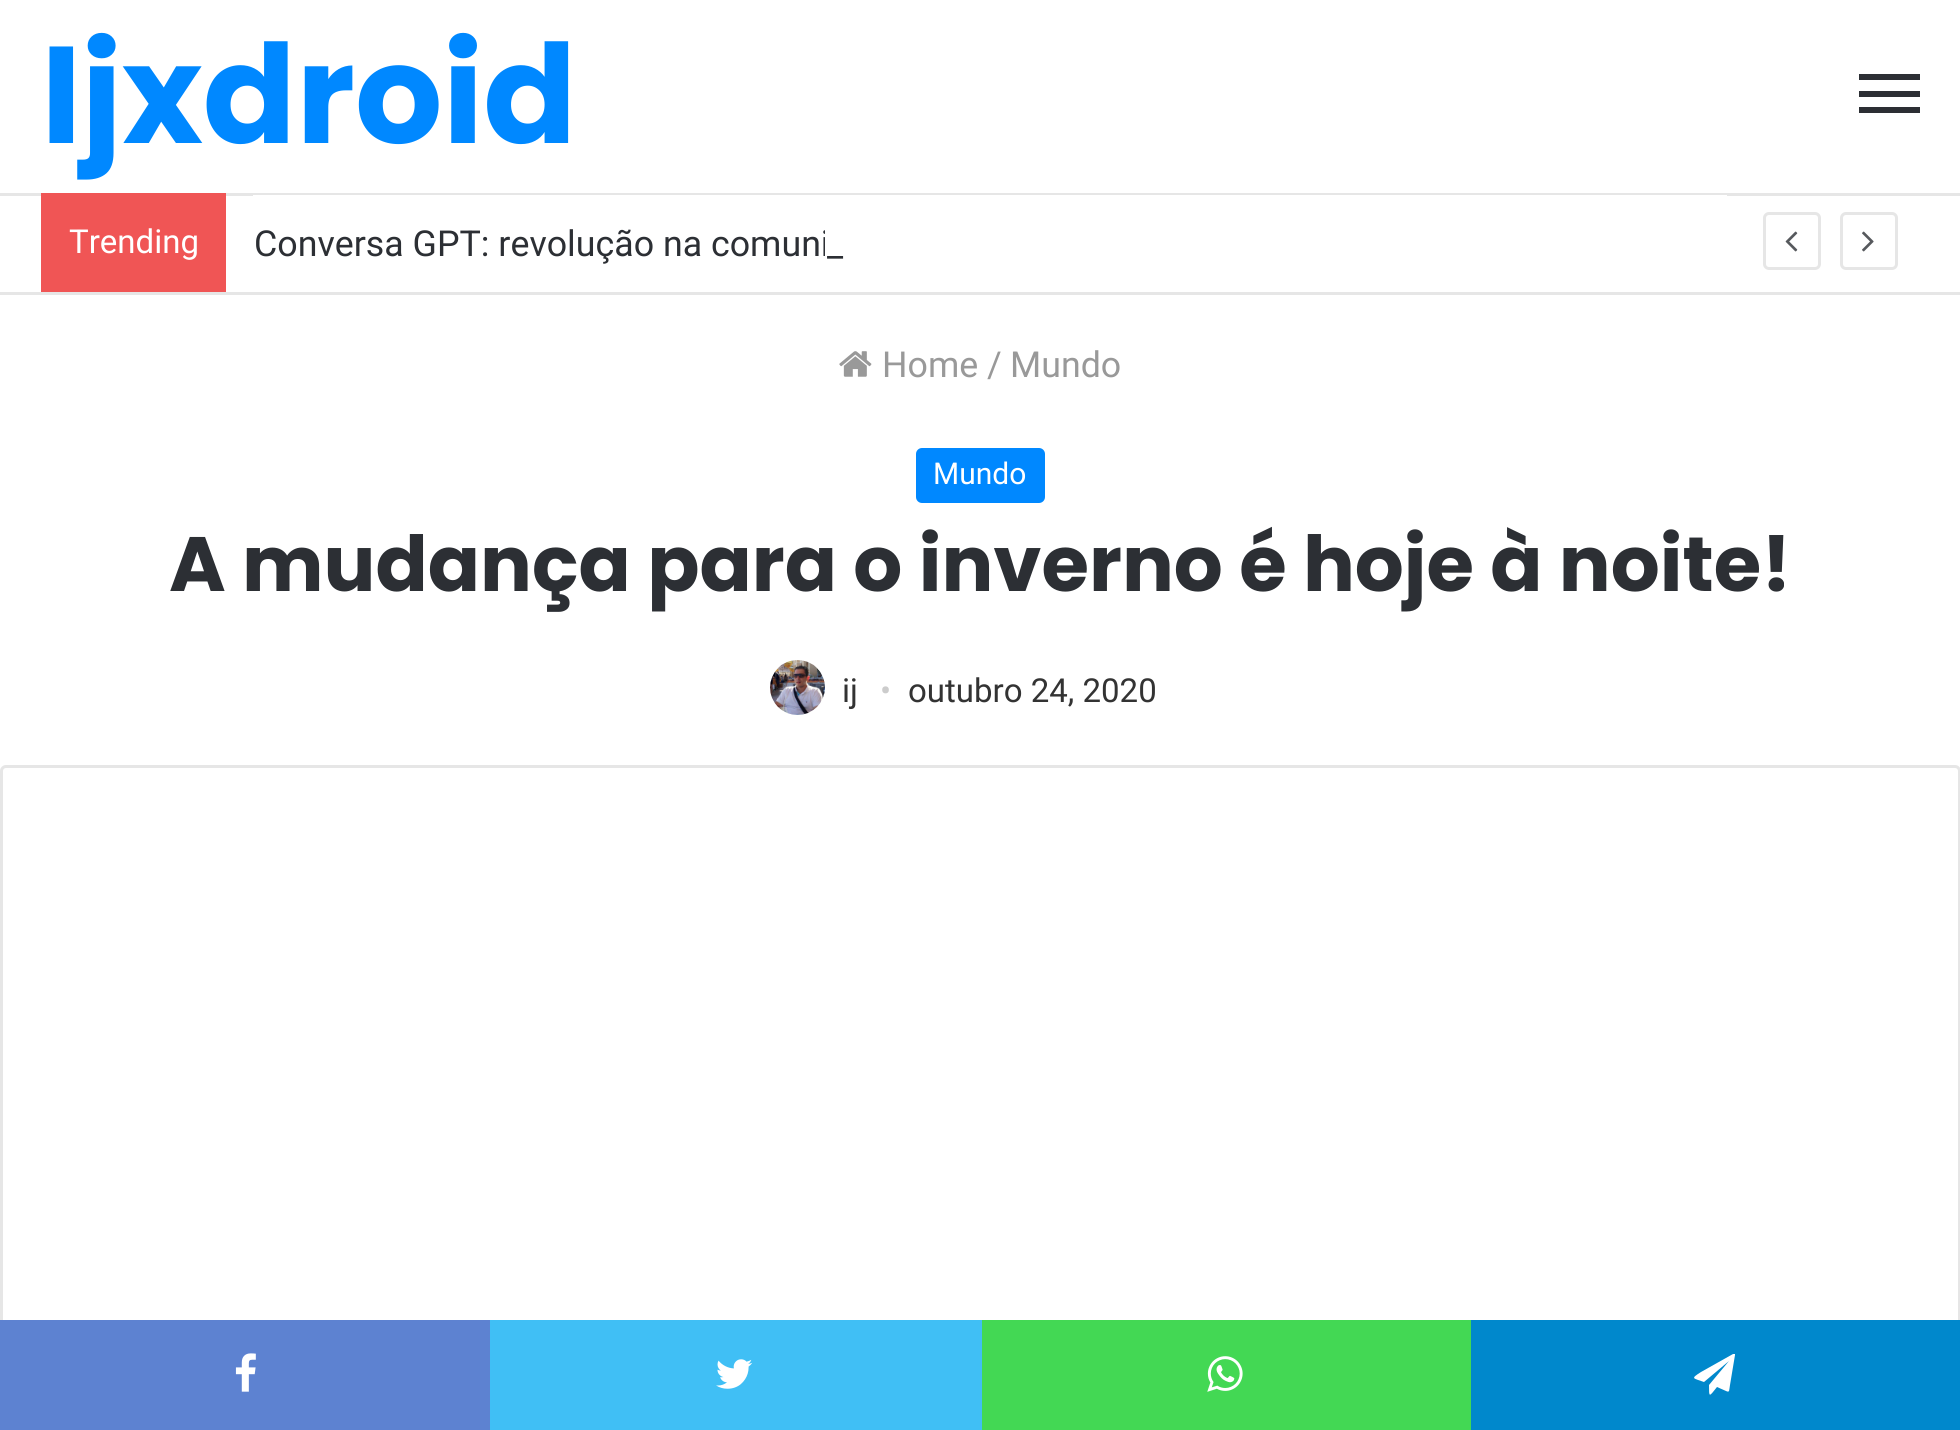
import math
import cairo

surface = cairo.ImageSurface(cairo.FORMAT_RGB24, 1960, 1430)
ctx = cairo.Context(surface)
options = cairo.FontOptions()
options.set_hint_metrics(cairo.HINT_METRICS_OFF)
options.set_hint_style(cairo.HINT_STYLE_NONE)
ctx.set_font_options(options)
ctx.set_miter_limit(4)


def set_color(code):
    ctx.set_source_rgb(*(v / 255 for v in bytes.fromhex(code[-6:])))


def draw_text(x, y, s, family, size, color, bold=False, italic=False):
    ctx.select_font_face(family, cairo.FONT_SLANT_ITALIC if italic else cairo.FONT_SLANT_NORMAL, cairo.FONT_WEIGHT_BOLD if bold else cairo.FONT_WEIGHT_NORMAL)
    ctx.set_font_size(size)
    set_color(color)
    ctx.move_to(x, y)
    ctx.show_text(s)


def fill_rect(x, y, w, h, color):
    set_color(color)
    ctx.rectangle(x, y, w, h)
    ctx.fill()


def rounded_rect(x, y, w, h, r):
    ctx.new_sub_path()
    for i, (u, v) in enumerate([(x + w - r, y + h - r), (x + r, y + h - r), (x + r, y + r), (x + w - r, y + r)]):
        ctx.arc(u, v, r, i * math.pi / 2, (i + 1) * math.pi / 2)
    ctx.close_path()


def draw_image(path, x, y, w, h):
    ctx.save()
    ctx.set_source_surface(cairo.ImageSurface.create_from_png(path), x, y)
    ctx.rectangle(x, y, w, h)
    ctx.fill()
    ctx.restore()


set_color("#ffffff")
ctx.paint()
draw_text(41, 143, "Ijxdroid", "Poppins", 137.5, "#0088ff", bold=True)
fill_rect(1859, 91, 61, 6, "#2c2f34")
fill_rect(1859, 74, 61, 6, "#2c2f34")
fill_rect(1859, 107, 61, 6, "#2c2f34")
fill_rect(0, 193, 1960, 3, "#e6e6e6")
fill_rect(0, 292, 1960, 3, "#e6e6e6")
fill_rect(41, 193, 185, 99, "#f05555")
draw_text(69, 253, "Trending", "Roboto", 33, "#ffffff")
fill_rect(253, 195, 572, 1, "#ffffff")
draw_text(254, 256, "Conversa GPT: revolução na comuni", "Roboto", 35.75, "#2c2f34")
fill_rect(825, 195, 902, 61, "#ffffff")
draw_text(827, 256, "_", "Roboto", 35.75, "#2c2f34")
rounded_rect(1764.5, 213.5, 55, 55, 4.5)
set_color("#e6e6e6")
ctx.set_line_width(3)
ctx.stroke()
draw_image("assets/img1.png", 1785, 231, 13, 21)
rounded_rect(1841.5, 213.5, 55, 55, 4.5)
ctx.stroke()
draw_image("assets/img2.png", 1862, 231, 12, 21)
draw_image("assets/img3.png", 839, 351, 33, 26)
draw_text(882, 377, "Home", "Roboto", 35.75, "#999999")
draw_text(987, 377, "/", "Roboto", 35.75, "#999999")
draw_text(1010, 377, "Mundo", "Roboto", 35.75, "#999999")
set_color("#0088ff")
rounded_rect(916, 448, 129, 55, 6)
ctx.fill()
draw_text(933, 484, "Mundo", "Roboto", 30, "#ffffff")
draw_text(169, 591, "A mudança para o inverno é hoje à noite!", "Poppins", 77, "#2c2f34", bold=True)
draw_image("assets/img4.png", 770, 660, 55, 55)
draw_text(842, 702, "ij", "Roboto", 33, "#333333")
draw_text(880, 702, "•", "Roboto", 33, "#cccccc")
draw_text(908, 702, "outubro 24, 2020", "Roboto", 33, "#333333")
rounded_rect(1.5, 766.5, 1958, 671, 4.5)
set_color("#e6e6e6")
ctx.stroke()
fill_rect(0, 1320, 490, 110, "#5d82d1")
draw_image("assets/img5.png", 235, 1353, 21, 39)
fill_rect(490, 1320, 492, 110, "#40bff5")
draw_image("assets/img6.png", 716, 1359, 37, 30)
fill_rect(982, 1320, 489, 110, "#43d854")
draw_image("assets/img7.png", 1207, 1356, 36, 36)
fill_rect(1471, 1320, 489, 110, "#0088cc")
set_color("#ffffff")
ctx.new_path()
ctx.move_to(1735, 1354)
ctx.line_to(1735, 1355)
ctx.line_to(1730, 1385)
ctx.curve_to(1729, 1390, 1730, 1393, 1726, 1391)
ctx.line_to(1717, 1387)
ctx.curve_to(1709, 1397, 1709, 1398, 1709, 1385)
ctx.line_to(1729, 1361)
ctx.line_to(1704, 1382)
ctx.curve_to(1693, 1378, 1690, 1379, 1701, 1372)
ctx.line_to(1733, 1354)
ctx.close_path()
ctx.fill()
surface.write_to_png("output.png")
